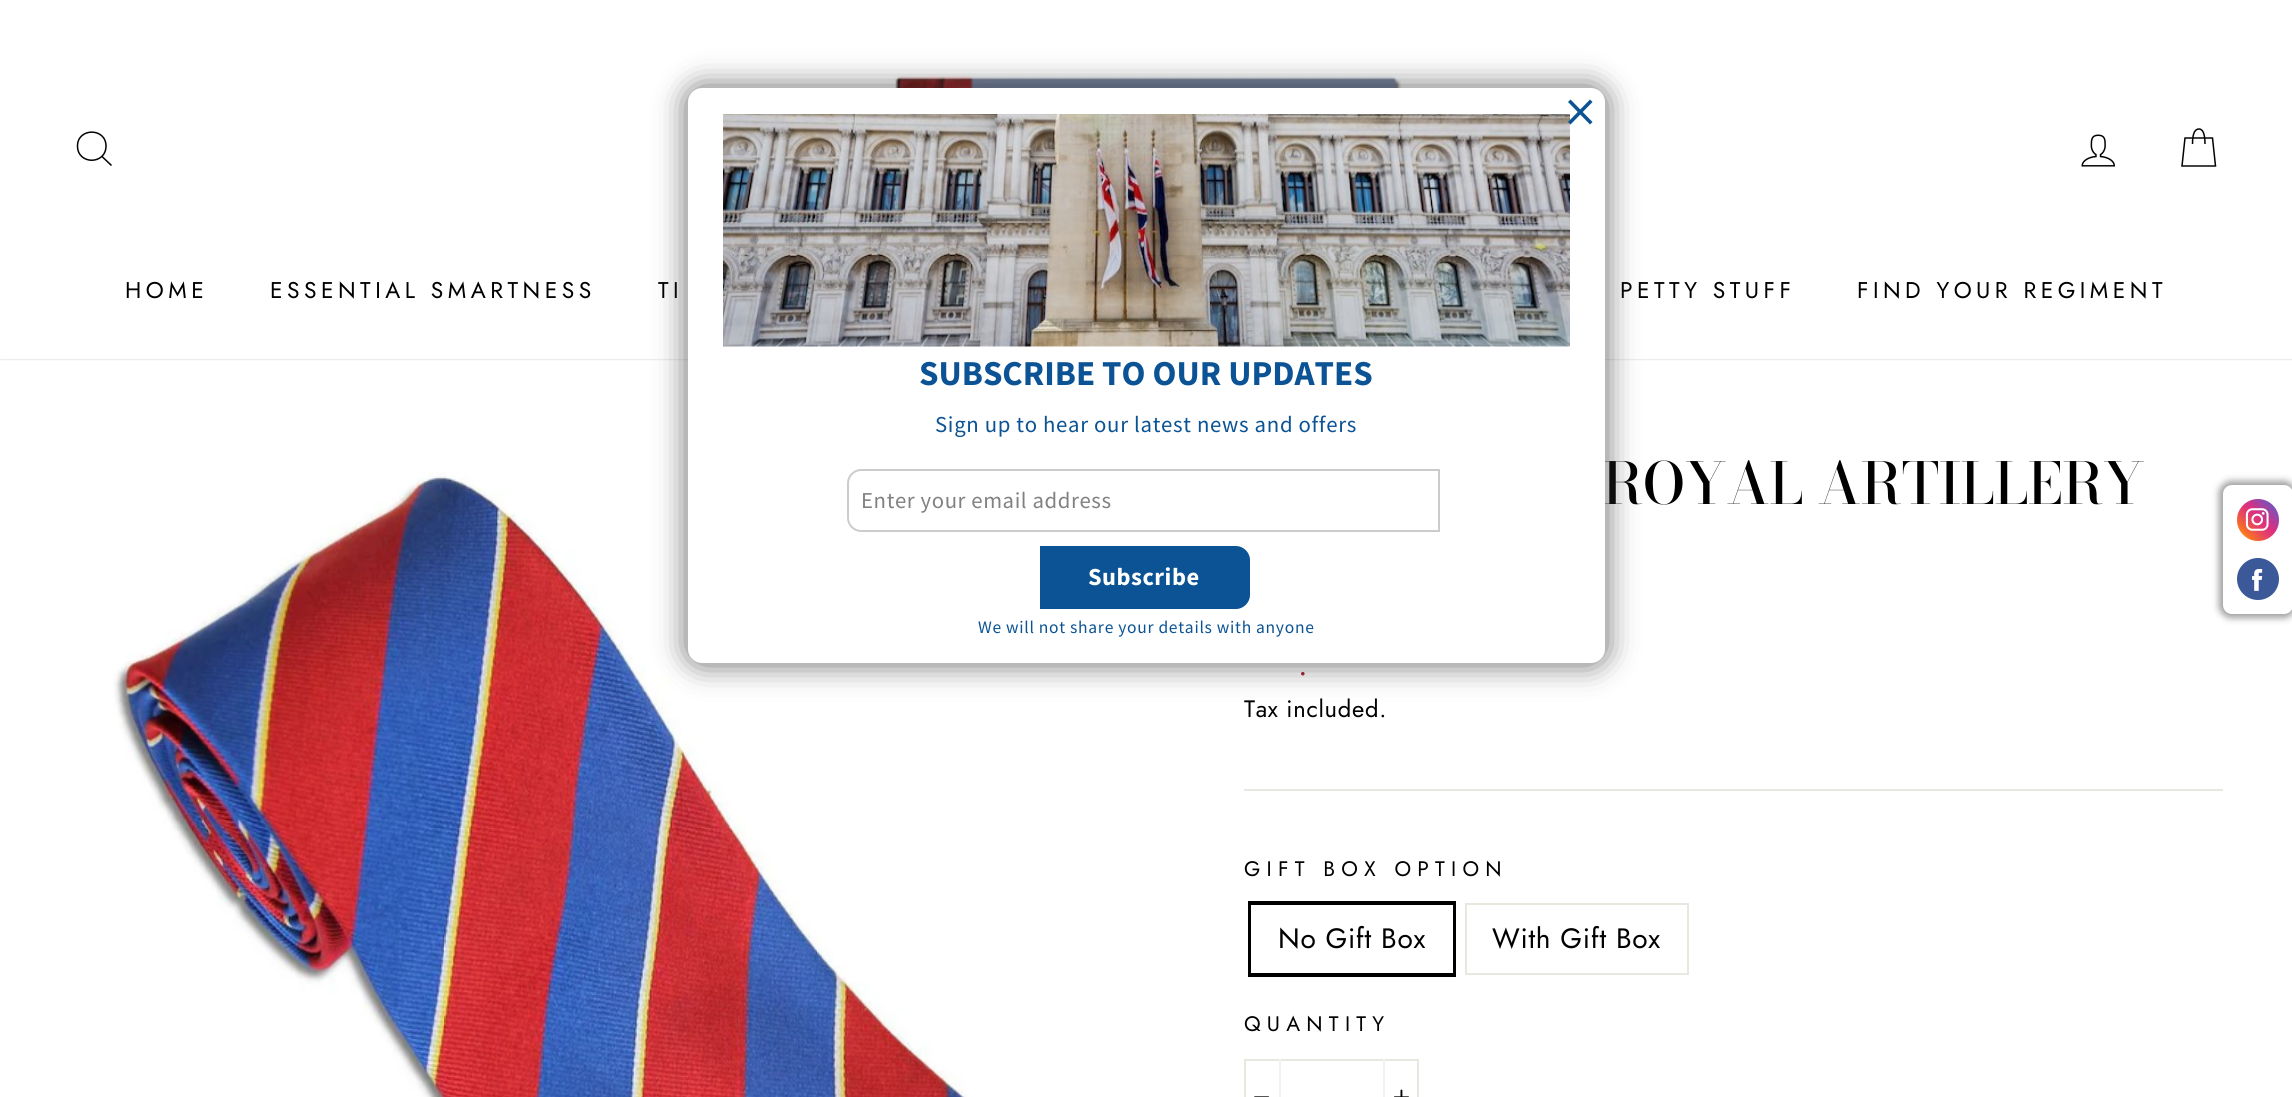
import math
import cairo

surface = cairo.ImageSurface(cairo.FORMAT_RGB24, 2292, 1097)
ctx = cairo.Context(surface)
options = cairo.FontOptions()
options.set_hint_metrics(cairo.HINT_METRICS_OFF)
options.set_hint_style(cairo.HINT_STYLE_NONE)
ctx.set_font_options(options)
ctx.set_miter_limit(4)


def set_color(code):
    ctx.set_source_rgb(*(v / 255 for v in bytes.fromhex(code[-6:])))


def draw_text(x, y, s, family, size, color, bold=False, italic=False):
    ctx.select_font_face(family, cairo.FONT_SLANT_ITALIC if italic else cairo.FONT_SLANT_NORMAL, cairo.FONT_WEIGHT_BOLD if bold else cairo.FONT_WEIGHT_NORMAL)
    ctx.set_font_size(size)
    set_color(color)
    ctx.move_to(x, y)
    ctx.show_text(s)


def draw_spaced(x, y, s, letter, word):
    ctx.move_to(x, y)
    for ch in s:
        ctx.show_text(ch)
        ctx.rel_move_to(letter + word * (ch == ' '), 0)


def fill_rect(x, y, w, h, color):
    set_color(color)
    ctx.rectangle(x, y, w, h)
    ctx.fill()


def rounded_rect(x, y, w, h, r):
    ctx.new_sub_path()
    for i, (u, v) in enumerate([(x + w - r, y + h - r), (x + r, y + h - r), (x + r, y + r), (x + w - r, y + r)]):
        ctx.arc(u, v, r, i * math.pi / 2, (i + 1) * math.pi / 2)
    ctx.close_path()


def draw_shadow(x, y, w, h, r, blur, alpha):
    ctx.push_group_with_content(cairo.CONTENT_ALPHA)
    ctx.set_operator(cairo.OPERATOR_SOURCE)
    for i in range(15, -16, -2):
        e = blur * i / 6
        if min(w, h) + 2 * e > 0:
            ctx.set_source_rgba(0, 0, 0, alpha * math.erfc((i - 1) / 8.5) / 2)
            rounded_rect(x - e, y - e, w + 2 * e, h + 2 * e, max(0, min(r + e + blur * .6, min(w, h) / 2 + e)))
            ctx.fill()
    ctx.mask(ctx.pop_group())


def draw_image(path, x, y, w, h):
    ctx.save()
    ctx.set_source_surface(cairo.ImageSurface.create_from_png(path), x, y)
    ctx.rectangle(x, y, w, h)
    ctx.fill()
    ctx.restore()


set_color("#ffffff")
ctx.paint()
set_color("#000000")
draw_shadow(0, 0, 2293, 359, 0, 1, 0.2)
fill_rect(0, 0, 2292, 359, "#ffffff")
draw_image("assets/img1.png", 895, 74, 507, 14)
ctx.new_path()
ctx.move_to(106, 146)
ctx.curve_to(106, 165, 77.5, 165, 77.5, 146)
ctx.curve_to(77.5, 127.5, 106, 127.5, 106, 146)
ctx.close_path()
ctx.move_to(111.5, 165.5)
ctx.line_to(102, 156.5)
set_color("#000000")
ctx.set_line_width(1.5)
ctx.stroke()
draw_image("assets/img2.png", 2081, 134, 35, 33)
ctx.new_path()
ctx.move_to(2192.5, 144)
ctx.curve_to(2192.5, 132, 2195.5, 129, 2199, 129)
ctx.curve_to(2202, 129, 2205, 132, 2205, 144)
ctx.move_to(2185, 138)
ctx.line_to(2212.5, 138)
ctx.line_to(2215.5, 166)
ctx.line_to(2182, 166)
ctx.close_path()
ctx.stroke()
ctx.select_font_face("Jost")
ctx.set_font_size(22.75)
draw_spaced(125, 298, "HOME", 4.5, 0)
draw_spaced(270, 298, "ESSENTIAL SMARTNESS", 4.5, 0)
draw_spaced(658, 298, "TI", 4.5, 0)
draw_spaced(1620, 298, "PETTY STUFF", 4.5, 0)
draw_spaced(1857, 298, "FIND YOUR REGIMENT", 4.5, 0)
draw_image("assets/img3.png", 113, 472, 854, 625)
draw_text(1602, 504, "ROYAL ARTILLERY", "Bodoni Moda Medium", 57.25, "#000000")
ctx.select_font_face("Jost")
ctx.set_font_size(32)
set_color("#a21e22")
draw_spaced(1298, 675, ".", 0.7, 0)
ctx.set_font_size(23.75)
set_color("#000000")
draw_spaced(1244, 717, "Tax included.", 0.7, 0)
fill_rect(1244, 789, 979, 2, "#e8e8e1")
ctx.set_font_size(21)
set_color("#000000")
draw_spaced(1244, 876, "GIFT BOX OPTION", 6.25, 0)
ctx.rectangle(1250, 903, 204, 72)
ctx.set_line_width(4)
ctx.stroke()
fill_rect(1251, 905, 202, 68, "#ffffff")
ctx.set_font_size(28)
set_color("#000000")
draw_spaced(1278, 948, "No Gift Box", 0.7, 0)
ctx.rectangle(1466, 904, 222, 70)
set_color("#e8e8e1")
ctx.set_line_width(2)
ctx.stroke()
set_color("#000000")
draw_spaced(1492, 948, "With Gift Box", 0.7, 0)
ctx.set_font_size(21)
draw_spaced(1244, 1031, "QUANTITY", 6.25, 0)
ctx.rectangle(1245, 1060, 173, 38)
set_color("#e8e8e1")
ctx.stroke()
fill_rect(1279, 1059, 2, 38, "#f2f2f2")
draw_image("assets/img4.png", 1254, 1096, 16, 1)
fill_rect(1383, 1059, 2, 38, "#f2f2f2")
draw_image("assets/img5.png", 1394, 1089, 15, 8)
set_color("#323232")
draw_shadow(686, 86, 921, 579, 16, 15, 0.69)
set_color("#ffffff")
rounded_rect(688, 88, 917, 575, 14)
ctx.fill()
draw_image("assets/img6.png", 723, 114, 847, 233)
set_color("#0b5394")
ctx.new_path()
ctx.move_to(1570.5, 99.5)
ctx.line_to(1592.5, 122)
ctx.line_to(1590, 124.5)
ctx.line_to(1568, 102)
ctx.close_path()
ctx.fill()
ctx.new_path()
ctx.move_to(1568, 122)
ctx.line_to(1590, 99.5)
ctx.line_to(1592.5, 102)
ctx.line_to(1570.5, 124.5)
ctx.close_path()
ctx.fill()
draw_text(919, 385, "SUBSCRIBE TO OUR UPDATES", "Source Sans Pro", 35, "#0b5394", bold=True)
ctx.select_font_face("Source Sans Pro")
ctx.set_font_size(22.75)
draw_spaced(935, 432, "Sign up to hear our latest news and offers", 0.7, 0)
ctx.new_path()
ctx.move_to(861, 470)
ctx.line_to(1439, 470)
ctx.line_to(1439, 531)
ctx.line_to(861, 531)
ctx.curve_to(854, 531, 848, 525, 848, 518)
ctx.line_to(848, 483)
ctx.curve_to(848, 476, 854, 470, 861, 470)
ctx.close_path()
set_color("#cccccc")
ctx.stroke()
set_color("#818181")
draw_spaced(861, 508, "Enter your email address", 0.6, 0)
set_color("#0b5394")
ctx.new_path()
ctx.move_to(1040, 546)
ctx.line_to(1236, 546)
ctx.curve_to(1243.5, 546, 1250, 552.5, 1250, 560)
ctx.line_to(1250, 595)
ctx.curve_to(1250, 602.5, 1243.5, 609, 1236, 609)
ctx.line_to(1040, 609)
ctx.close_path()
ctx.fill()
ctx.select_font_face("Source Sans Pro", cairo.FONT_SLANT_NORMAL, cairo.FONT_WEIGHT_BOLD)
ctx.set_font_size(24.5)
set_color("#ffffff")
draw_spaced(1088, 585, "Subscribe", 0.5, 0)
ctx.select_font_face("Source Sans Pro")
ctx.set_font_size(17.5)
set_color("#0b5394")
draw_spaced(978, 633, "We will not share your details with anyone", 0.7, 0)
set_color("#9e9e9e")
draw_shadow(2219, 481, 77, 137, 12, 3.5, 1)
set_color("#ffffff")
rounded_rect(2223, 485, 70, 129, 9)
ctx.fill()
draw_image("assets/img7.png", 2237, 499, 42, 42)
draw_image("assets/img8.png", 2237, 558, 42, 42)
surface.write_to_png("output.png")
